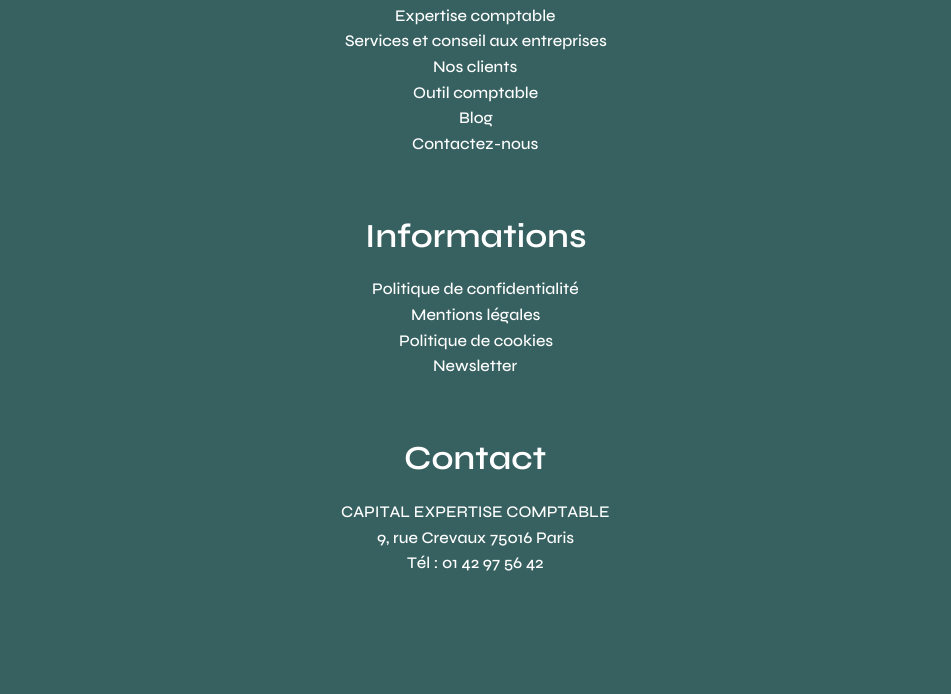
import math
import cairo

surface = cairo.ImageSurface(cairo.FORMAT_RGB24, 951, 694)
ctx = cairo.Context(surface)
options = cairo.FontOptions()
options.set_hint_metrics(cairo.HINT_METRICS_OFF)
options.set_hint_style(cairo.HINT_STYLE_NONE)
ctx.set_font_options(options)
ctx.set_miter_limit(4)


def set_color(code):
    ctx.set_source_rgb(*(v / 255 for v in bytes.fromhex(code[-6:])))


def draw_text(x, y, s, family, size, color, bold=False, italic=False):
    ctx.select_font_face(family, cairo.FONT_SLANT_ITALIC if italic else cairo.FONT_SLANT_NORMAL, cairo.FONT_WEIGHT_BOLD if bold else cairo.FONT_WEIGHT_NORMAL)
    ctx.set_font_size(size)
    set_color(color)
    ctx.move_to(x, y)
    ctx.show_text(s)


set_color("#366160")
ctx.paint()
draw_text(395, 21, "Expertise comptable", "Syne Medium", 16.25, "#ffffff")
draw_text(345, 46, "Services et conseil aux entreprises", "Syne Medium", 16.25, "#ffffff")
draw_text(433, 72, "Nos clients", "Syne Medium", 16.25, "#ffffff")
draw_text(413, 98, "Outil comptable", "Syne Medium", 16.25, "#ffffff")
draw_text(459, 123, "Blog", "Syne Medium", 16.25, "#ffffff")
draw_text(412, 149, "Contactez-nous", "Syne Medium", 16.25, "#ffffff")
draw_text(365, 247, "Informations", "Syne SemiBold", 33.75, "#ffffff")
draw_text(372, 294, "Politique de confidentialité", "Syne Medium", 16.25, "#ffffff")
draw_text(411, 320, "Mentions légales", "Syne Medium", 16.25, "#ffffff")
draw_text(399, 346, "Politique de cookies", "Syne Medium", 16.25, "#ffffff")
draw_text(433, 371, "Newsletter", "Syne Medium", 16.25, "#ffffff")
draw_text(404, 469, "Contact", "Syne SemiBold", 33.75, "#ffffff")
draw_text(341, 517, "CAPITAL EXPERTISE COMPTABLE", "Syne Medium", 16.25, "#ffffff")
draw_text(377, 543, "9, rue Crevaux 75016 Paris", "Syne Medium", 16.25, "#ffffff")
draw_text(407, 568, "Tél : 01 42 97 56 42", "Syne Medium", 16.25, "#ffffff")
surface.write_to_png("output.png")
